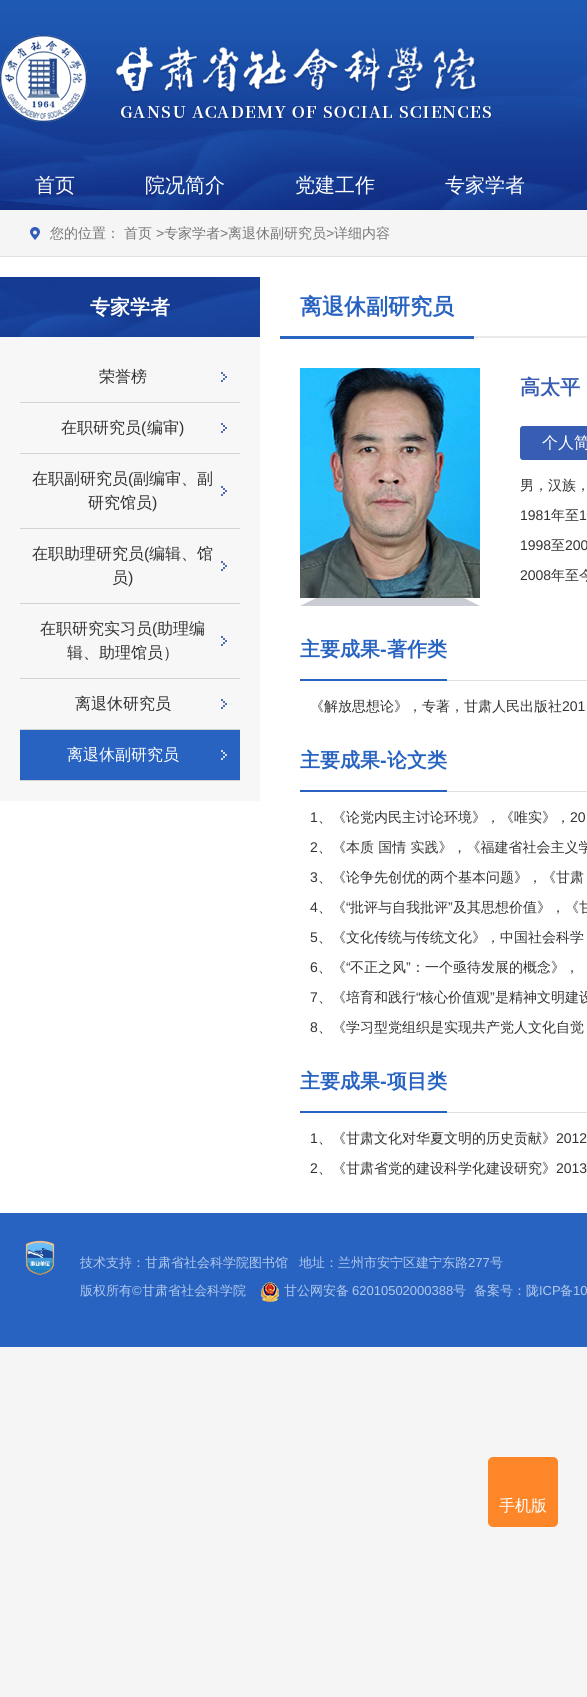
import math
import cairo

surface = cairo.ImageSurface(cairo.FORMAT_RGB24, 587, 1697)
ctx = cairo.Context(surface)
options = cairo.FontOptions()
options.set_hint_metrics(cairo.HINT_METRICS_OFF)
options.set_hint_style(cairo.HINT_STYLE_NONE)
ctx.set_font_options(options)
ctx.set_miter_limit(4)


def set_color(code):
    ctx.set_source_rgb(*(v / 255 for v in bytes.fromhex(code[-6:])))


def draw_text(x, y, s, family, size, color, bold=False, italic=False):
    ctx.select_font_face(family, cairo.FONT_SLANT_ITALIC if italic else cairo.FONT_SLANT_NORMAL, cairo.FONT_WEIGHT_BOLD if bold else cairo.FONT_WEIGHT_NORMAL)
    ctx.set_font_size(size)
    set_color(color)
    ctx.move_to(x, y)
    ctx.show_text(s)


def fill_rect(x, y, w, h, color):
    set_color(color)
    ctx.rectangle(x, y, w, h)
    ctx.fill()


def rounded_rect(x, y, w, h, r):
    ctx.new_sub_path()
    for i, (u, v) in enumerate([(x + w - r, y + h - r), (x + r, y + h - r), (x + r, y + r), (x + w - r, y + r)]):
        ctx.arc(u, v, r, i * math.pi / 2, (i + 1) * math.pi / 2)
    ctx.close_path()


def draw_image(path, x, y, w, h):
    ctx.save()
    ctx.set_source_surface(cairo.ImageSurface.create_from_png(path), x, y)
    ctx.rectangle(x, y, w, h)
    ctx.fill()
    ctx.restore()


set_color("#f5f5f5")
ctx.paint()
fill_rect(0, 257, 587, 956, "#ffffff")
draw_image("assets/img1.png", 0, 0, 587, 210)
draw_image("assets/img2.png", 0, 35, 492, 87)
draw_text(35, 192, "首页", "WenQuanYi Zen Hei Medium", 20, "#ffffff")
draw_text(145, 192, "院况简介", "WenQuanYi Zen Hei Medium", 20, "#ffffff")
draw_text(295, 192, "党建工作", "WenQuanYi Zen Hei Medium", 20, "#ffffff")
draw_text(445, 192, "专家学者", "WenQuanYi Zen Hei Medium", 20, "#ffffff")
fill_rect(0, 256, 587, 1, "#e1e1e1")
draw_image("assets/img3.png", 30, 227, 10, 13)
draw_text(50, 238, "您的位置：", "WenQuanYi Zen Hei Medium", 14, "#777777")
draw_text(124, 238, "首页", "WenQuanYi Zen Hei Medium", 14, "#777777")
draw_text(156, 238, ">", "Liberation Sans", 14, "#777777")
draw_text(164, 238, "专家学者", "WenQuanYi Zen Hei Medium", 14, "#777777")
draw_text(220, 238, ">", "Liberation Sans", 14, "#777777")
draw_text(228, 238, "离退休副研究员", "WenQuanYi Zen Hei Medium", 14, "#777777")
draw_text(326, 238, ">", "Liberation Sans", 14, "#777777")
draw_text(334, 238, "详细内容", "WenQuanYi Zen Hei Medium", 14, "#777777")
fill_rect(0, 337, 260, 464, "#f7f7f7")
draw_image("assets/img4.png", 0, 277, 260, 60)
draw_text(90, 314, "专家学者", "WenQuanYi Zen Hei", 20, "#ffffff", bold=True)
fill_rect(20, 402, 220, 1, "#d3d3d3")
draw_image("assets/img5.png", 221, 372, 6, 10)
draw_text(99, 382, "荣誉榜", "WenQuanYi Zen Hei Medium", 16, "#333333")
fill_rect(20, 453, 220, 1, "#d3d3d3")
draw_image("assets/img5.png", 221, 423, 6, 10)
draw_text(61, 433, "在职研究员", "WenQuanYi Zen Hei Medium", 16, "#333333")
draw_text(141, 433, "(", "Liberation Sans", 16, "#333333")
draw_text(147, 433, "编审", "WenQuanYi Zen Hei Medium", 16, "#333333")
draw_text(179, 433, ")", "Liberation Sans", 16, "#333333")
fill_rect(20, 528, 220, 1, "#d3d3d3")
draw_image("assets/img5.png", 221, 486, 6, 10)
draw_text(32, 484, "在职副研究员", "WenQuanYi Zen Hei Medium", 16, "#333333")
draw_text(128, 484, "(", "Liberation Sans", 16, "#333333")
draw_text(133, 484, "副编审、副", "WenQuanYi Zen Hei Medium", 16, "#333333")
draw_text(88, 508, "研究馆员", "WenQuanYi Zen Hei Medium", 16, "#333333")
draw_text(152, 508, ")", "Liberation Sans", 16, "#333333")
fill_rect(20, 603, 220, 1, "#d3d3d3")
draw_image("assets/img5.png", 221, 561, 6, 10)
draw_text(32, 559, "在职助理研究员", "WenQuanYi Zen Hei Medium", 16, "#333333")
draw_text(144, 559, "(", "Liberation Sans", 16, "#333333")
draw_text(149, 559, "编辑、馆", "WenQuanYi Zen Hei Medium", 16, "#333333")
draw_text(112, 583, "员", "WenQuanYi Zen Hei Medium", 16, "#333333")
draw_text(128, 583, ")", "Liberation Sans", 16, "#333333")
fill_rect(20, 678, 220, 1, "#d3d3d3")
draw_image("assets/img5.png", 221, 636, 6, 10)
draw_text(40, 634, "在职研究实习员", "WenQuanYi Zen Hei Medium", 16, "#333333")
draw_text(152, 634, "(", "Liberation Sans", 16, "#333333")
draw_text(157, 634, "助理编", "WenQuanYi Zen Hei Medium", 16, "#333333")
draw_text(67, 658, "辑、助理馆员）", "WenQuanYi Zen Hei Medium", 16, "#333333")
fill_rect(20, 729, 220, 1, "#d3d3d3")
draw_image("assets/img5.png", 221, 699, 6, 10)
draw_text(75, 709, "离退休研究员", "WenQuanYi Zen Hei Medium", 16, "#333333")
fill_rect(20, 730, 220, 50, "#2863c1")
fill_rect(20, 780, 220, 1, "#d3d3d3")
draw_image("assets/img6.png", 221, 750, 6, 10)
draw_text(67, 760, "离退休副研究员", "WenQuanYi Zen Hei Medium", 16, "#ffffff")
fill_rect(474, 336, 113, 2, "#ebebeb")
fill_rect(280, 336, 194, 3, "#2865c0")
draw_text(300, 314, "离退休副研究员", "WenQuanYi Zen Hei", 22, "#2863c1", bold=True)
draw_image("assets/img7.png", 300, 598, 180, 8)
draw_image("assets/img8.png", 300, 368, 180, 230)
draw_text(520, 394, "高太平", "WenQuanYi Zen Hei", 20, "#385eb4", bold=True)
rounded_rect(520, 426, 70, 34, 3)
ctx.fill()
draw_text(542, 448, "个人简", "WenQuanYi Zen Hei Medium", 16, "#ffffff")
draw_text(520, 490, "男，汉族，", "WenQuanYi Zen Hei Medium", 14, "#333333")
draw_text(520, 520, "1981", "Liberation Sans", 14, "#333333")
draw_text(551, 520, "年至", "WenQuanYi Zen Hei Medium", 14, "#333333")
draw_text(579, 520, "1", "Liberation Sans", 14, "#333333")
draw_text(520, 550, "1998", "Liberation Sans", 14, "#333333")
draw_text(551, 550, "至", "WenQuanYi Zen Hei Medium", 14, "#333333")
draw_text(565, 550, "200", "Liberation Sans", 14, "#333333")
draw_text(520, 580, "2008", "Liberation Sans", 14, "#333333")
draw_text(551, 580, "年至今", "WenQuanYi Zen Hei Medium", 14, "#333333")
fill_rect(447, 680, 140, 1, "#e0e0e0")
fill_rect(300, 679, 147, 2, "#2863c1")
draw_text(300, 656, "主要成果", "WenQuanYi Zen Hei", 20, "#2863c1", bold=True)
draw_text(380, 656, "-", "Liberation Sans", 20, "#2863c1", bold=True)
draw_text(387, 656, "著作类", "WenQuanYi Zen Hei", 20, "#2863c1", bold=True)
draw_text(310, 711, "《解放思想论》，专著，甘肃人民出版社", "WenQuanYi Zen Hei Medium", 14, "#333333")
draw_text(562, 711, "201", "Liberation Sans", 14, "#333333")
fill_rect(447, 791, 140, 1, "#e0e0e0")
fill_rect(300, 790, 147, 2, "#2863c1")
draw_text(300, 767, "主要成果", "WenQuanYi Zen Hei", 20, "#2863c1", bold=True)
draw_text(380, 767, "-", "Liberation Sans", 20, "#2863c1", bold=True)
draw_text(387, 767, "论文类", "WenQuanYi Zen Hei", 20, "#2863c1", bold=True)
draw_text(310, 822, "1", "Liberation Sans", 14, "#333333")
draw_text(318, 822, "、《论党内民主讨论环境》，《唯实》，", "WenQuanYi Zen Hei Medium", 14, "#333333")
draw_text(570, 822, "20", "Liberation Sans", 14, "#333333")
draw_text(310, 852, "2", "Liberation Sans", 14, "#333333")
draw_text(318, 852, "、《本质 国情 实践》，《福建省社会主义学", "WenQuanYi Zen Hei Medium", 14, "#333333")
draw_text(310, 882, "3", "Liberation Sans", 14, "#333333")
draw_text(318, 882, "、《论争先创优的两个基本问题》，《甘肃", "WenQuanYi Zen Hei Medium", 14, "#333333")
draw_text(310, 912, "4", "Liberation Sans", 14, "#333333")
draw_text(318, 912, "、《", "WenQuanYi Zen Hei Medium", 14, "#333333")
draw_text(346, 912, "“", "Liberation Sans", 14, "#333333")
draw_text(350, 912, "批评与自我批评", "WenQuanYi Zen Hei Medium", 14, "#333333")
draw_text(448, 912, "”", "Liberation Sans", 14, "#333333")
draw_text(453, 912, "及其思想价值》，《甘", "WenQuanYi Zen Hei Medium", 14, "#333333")
draw_text(310, 942, "5", "Liberation Sans", 14, "#333333")
draw_text(318, 942, "、《文化传统与传统文化》，中国社会科学", "WenQuanYi Zen Hei Medium", 14, "#333333")
draw_text(310, 972, "6", "Liberation Sans", 14, "#333333")
draw_text(318, 972, "、《", "WenQuanYi Zen Hei Medium", 14, "#333333")
draw_text(346, 972, "“", "Liberation Sans", 14, "#333333")
draw_text(350, 972, "不正之风", "WenQuanYi Zen Hei Medium", 14, "#333333")
draw_text(406, 972, "”", "Liberation Sans", 14, "#333333")
draw_text(411, 972, "：一个亟待发展的概念》，", "WenQuanYi Zen Hei Medium", 14, "#333333")
draw_text(310, 1002, "7", "Liberation Sans", 14, "#333333")
draw_text(318, 1002, "、《培育和践行", "WenQuanYi Zen Hei Medium", 14, "#333333")
draw_text(416, 1002, "“", "Liberation Sans", 14, "#333333")
draw_text(420, 1002, "核心价值观", "WenQuanYi Zen Hei Medium", 14, "#333333")
draw_text(490, 1002, "”", "Liberation Sans", 14, "#333333")
draw_text(495, 1002, "是精神文明建设", "WenQuanYi Zen Hei Medium", 14, "#333333")
draw_text(310, 1032, "8", "Liberation Sans", 14, "#333333")
draw_text(318, 1032, "、《学习型党组织是实现共产党人文化自觉", "WenQuanYi Zen Hei Medium", 14, "#333333")
fill_rect(447, 1112, 140, 1, "#e0e0e0")
fill_rect(300, 1111, 147, 2, "#2863c1")
draw_text(300, 1088, "主要成果", "WenQuanYi Zen Hei", 20, "#2863c1", bold=True)
draw_text(380, 1088, "-", "Liberation Sans", 20, "#2863c1", bold=True)
draw_text(387, 1088, "项目类", "WenQuanYi Zen Hei", 20, "#2863c1", bold=True)
draw_text(310, 1143, "1", "Liberation Sans", 14, "#333333")
draw_text(318, 1143, "、《甘肃文化对华夏文明的历史贡献》", "WenQuanYi Zen Hei Medium", 14, "#333333")
draw_text(556, 1143, "2012", "Liberation Sans", 14, "#333333")
draw_text(310, 1173, "2", "Liberation Sans", 14, "#333333")
draw_text(318, 1173, "、《甘肃省党的建设科学化建设研究》", "WenQuanYi Zen Hei Medium", 14, "#333333")
draw_text(556, 1173, "2013", "Liberation Sans", 14, "#333333")
fill_rect(0, 1213, 587, 134, "#2863c1")
draw_image("assets/img9.png", 25, 1240, 30, 36)
draw_text(80, 1267, "技术支持：甘肃省社会科学院图书馆", "WenQuanYi Zen Hei Medium", 13, "#b2c9ed")
draw_text(299, 1267, "地址：兰州市安宁区建宁东路", "WenQuanYi Zen Hei Medium", 13, "#b2c9ed")
draw_text(468, 1267, "277", "Liberation Sans", 13, "#b2c9ed")
draw_text(490, 1267, "号", "WenQuanYi Zen Hei Medium", 13, "#b2c9ed")
draw_text(80, 1295, "版权所有", "WenQuanYi Zen Hei Medium", 13, "#b2c9ed")
draw_text(132, 1295, "©", "Liberation Sans", 13, "#b2c9ed")
draw_text(142, 1295, "甘肃省社会科学院", "WenQuanYi Zen Hei Medium", 13, "#b2c9ed")
draw_image("assets/img10.png", 261, 1282, 18, 20)
draw_text(284, 1295, "甘公网安备", "WenQuanYi Zen Hei Medium", 13, "#b2c9ed")
draw_text(352, 1295, "62010502000388", "Liberation Sans", 13, "#b2c9ed")
draw_text(453, 1295, "号", "WenQuanYi Zen Hei Medium", 13, "#b2c9ed")
draw_text(474, 1295, "备案号：陇", "WenQuanYi Zen Hei Medium", 13, "#b2c9ed")
draw_text(539, 1295, "ICP", "Liberation Sans", 13, "#b2c9ed")
draw_text(560, 1295, "备", "WenQuanYi Zen Hei Medium", 13, "#b2c9ed")
draw_text(573, 1295, "10", "Liberation Sans", 13, "#b2c9ed")
set_color("#fd8628")
rounded_rect(488, 1457, 70, 70, 5)
ctx.fill()
draw_text(499, 1511, "手机版", "WenQuanYi Zen Hei Medium", 16, "#ffffff")
surface.write_to_png("output.png")
